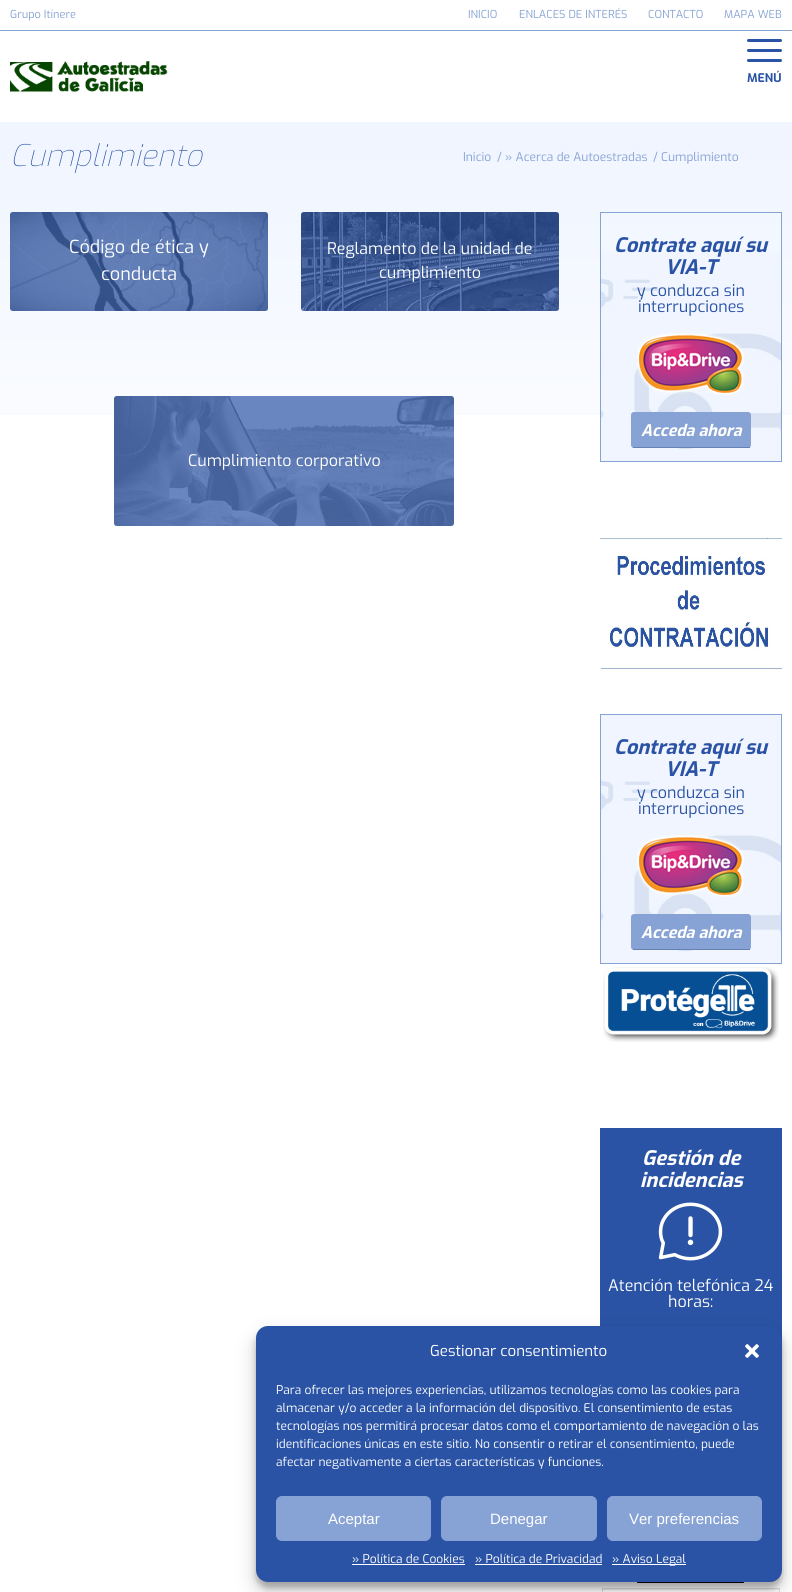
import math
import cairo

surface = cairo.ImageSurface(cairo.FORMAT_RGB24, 792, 1592)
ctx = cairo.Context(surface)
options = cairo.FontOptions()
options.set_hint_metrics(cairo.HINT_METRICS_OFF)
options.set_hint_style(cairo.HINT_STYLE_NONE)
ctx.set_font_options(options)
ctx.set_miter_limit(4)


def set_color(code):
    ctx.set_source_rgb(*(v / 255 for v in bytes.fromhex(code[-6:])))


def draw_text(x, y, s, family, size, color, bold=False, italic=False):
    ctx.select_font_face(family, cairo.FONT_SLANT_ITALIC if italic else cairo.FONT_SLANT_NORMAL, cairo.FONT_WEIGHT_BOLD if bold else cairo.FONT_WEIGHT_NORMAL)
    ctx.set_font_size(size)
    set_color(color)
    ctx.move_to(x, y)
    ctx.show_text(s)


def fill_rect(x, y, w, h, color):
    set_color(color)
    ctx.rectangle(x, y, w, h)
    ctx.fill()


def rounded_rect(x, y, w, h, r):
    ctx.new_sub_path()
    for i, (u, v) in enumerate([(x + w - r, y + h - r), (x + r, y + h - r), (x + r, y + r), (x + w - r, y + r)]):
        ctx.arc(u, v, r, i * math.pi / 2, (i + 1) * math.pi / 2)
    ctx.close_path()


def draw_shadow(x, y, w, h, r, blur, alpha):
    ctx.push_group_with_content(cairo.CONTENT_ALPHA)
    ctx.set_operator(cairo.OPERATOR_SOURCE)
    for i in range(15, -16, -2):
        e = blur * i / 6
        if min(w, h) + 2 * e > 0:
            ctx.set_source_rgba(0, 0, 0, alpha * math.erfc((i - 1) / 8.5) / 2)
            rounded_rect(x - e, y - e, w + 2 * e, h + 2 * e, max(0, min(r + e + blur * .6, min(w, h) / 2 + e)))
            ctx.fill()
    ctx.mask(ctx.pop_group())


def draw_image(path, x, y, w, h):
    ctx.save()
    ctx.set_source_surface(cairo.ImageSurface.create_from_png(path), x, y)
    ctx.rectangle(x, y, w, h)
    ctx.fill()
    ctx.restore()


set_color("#ffffff")
ctx.paint()
fill_rect(0, 30, 792, 1, "#87a2d4")
draw_text(10, 18, "Grupo Itínere", "Exo", 11, "#87a2d4")
draw_text(468, 18, "INICIO", "Exo", 11, "#87a2d4")
draw_text(519, 18, "ENLACES DE INTERÉS", "Exo", 11, "#87a2d4")
draw_text(648, 18, "CONTACTO", "Exo", 11, "#87a2d4")
draw_text(724, 18, "MAPA WEB", "Exo", 11, "#87a2d4")
draw_image("assets/img1.png", 10, 61, 158, 31)
set_color("#2a53a5")
rounded_rect(747, 49, 35, 3, 1.5)
ctx.fill()
rounded_rect(747, 39, 35, 3, 1.5)
ctx.fill()
rounded_rect(747, 59, 35, 3, 1.5)
ctx.fill()
draw_text(747, 82, "MENÚ", "Exo", 12, "#2a53a5", bold=True)
draw_image("assets/img2.png", 0, 122, 792, 293)
draw_text(10, 166, "Cumplimiento", "Exo Thin", 30, "#2a53a5", italic=True)
draw_text(463, 161, "Inicio", "Exo", 12, "#87a2d4")
draw_text(497, 161, "/", "Exo", 12, "#87a2d4")
draw_text(505, 161, "» Acerca de Autoestradas", "Exo", 12, "#87a2d4")
draw_text(653, 161, "/", "Exo", 12, "#87a2d4")
draw_text(661, 161, "Cumplimiento", "Exo", 12, "#87a2d4")
draw_image("assets/img3.png", 10, 212, 258, 99)
draw_text(69, 253, "Código de ética y", "Exo", 18, "#ffffff")
draw_text(101, 280, "conducta", "Exo", 18, "#ffffff")
draw_image("assets/img4.png", 301, 212, 258, 99)
draw_text(327, 254, "Reglamento de la unidad de", "Exo", 16, "#ffffff")
draw_text(379, 278, "cumplimiento", "Exo", 16, "#ffffff")
draw_image("assets/img5.png", 114, 396, 340, 130)
draw_text(188, 466, "Cumplimiento corporativo", "Exo", 16, "#ffffff")
fill_rect(601, 252, 180, 209, "#f1f5ff")
draw_image("assets/img6.png", 601, 278, 180, 172)
ctx.rectangle(600.5, 212.5, 181, 249)
set_color("#87a2d4")
ctx.set_line_width(1)
ctx.stroke()
draw_text(614, 252, "Contrate aquí su", "Exo", 20, "#2a53a5", bold=True, italic=True)
draw_text(665, 274, "VIA-T", "Exo", 20, "#2a53a5", bold=True, italic=True)
draw_text(637, 296, "y conduzca sin", "Exo", 16, "#2a53a5")
draw_text(638, 312, "interrupciones", "Exo", 16, "#2a53a5")
draw_image("assets/img7.png", 637, 333, 107, 62)
set_color("#87a2d4")
rounded_rect(631, 412, 120, 36, 3)
ctx.fill()
fill_rect(633, 447, 117, 1, "#6580b2")
draw_text(641, 436, "Acceda ahora", "Exo", 16, "#ffffff", bold=True, italic=True)
draw_image("assets/img8.png", 600, 537, 182, 134)
fill_rect(601, 715, 180, 248, "#f1f5ff")
draw_image("assets/img6.png", 601, 780, 180, 172)
ctx.rectangle(600.5, 714.5, 181, 249)
set_color("#87a2d4")
ctx.stroke()
draw_text(614, 754, "Contrate aquí su", "Exo", 20, "#2a53a5", bold=True, italic=True)
draw_text(665, 776, "VIA-T", "Exo", 20, "#2a53a5", bold=True, italic=True)
draw_text(637, 798, "y conduzca sin", "Exo", 16, "#2a53a5")
draw_text(638, 814, "interrupciones", "Exo", 16, "#2a53a5")
draw_image("assets/img7.png", 637, 835, 107, 62)
set_color("#87a2d4")
rounded_rect(631, 914, 120, 36, 3)
ctx.fill()
fill_rect(633, 949, 117, 1, "#6580b2")
draw_text(641, 938, "Acceda ahora", "Exo", 16, "#ffffff", bold=True, italic=True)
draw_image("assets/img9.png", 603, 967, 176, 75)
fill_rect(600, 1128, 182, 210, "#2a53a5")
draw_text(642, 1165, "Gestión de", "Exo", 20, "#ffffff", bold=True, italic=True)
draw_text(640, 1187, "incidencias", "Exo", 20, "#ffffff", bold=True, italic=True)
draw_image("assets/img10.png", 658, 1202, 65, 59)
draw_text(608, 1291, "Atención telefónica 24", "Exo", 16, "#ffffff")
draw_text(668, 1307, "horas:", "Exo", 16, "#ffffff")
draw_image("assets/img11.png", 637, 1582, 107, 1)
draw_image("assets/img12.png", 602, 1588, 178, 4)
set_color("#000000")
draw_shadow(256, 1332, 526, 256, 12, 3, 0.23)
draw_shadow(256, 1336, 526, 256, 12, 10, 0.19)
set_color("#2a53a5")
rounded_rect(256, 1326, 526, 256, 12)
ctx.fill()
draw_text(430, 1356, "Gestionar consentimiento", "Exo", 15, "#ffffff")
draw_image("assets/img13.png", 745, 1344, 14, 14)
draw_text(276, 1394, "Para ofrecer las mejores experiencias, utilizamos tecnologías como las cookies para", "Exo", 12, "#ffffff")
draw_text(276, 1412, "almacenar y/o acceder a la información del dispositivo. El consentimiento de estas", "Exo", 12, "#ffffff")
draw_text(276, 1430, "tecnologías nos permitirá procesar datos como el comportamiento de navegación o las", "Exo", 12, "#ffffff")
draw_text(276, 1448, "identificaciones únicas en este sitio. No consentir o retirar el consentimiento, puede", "Exo", 12, "#ffffff")
draw_text(276, 1466, "afectar negativamente a ciertas características y funciones.", "Exo", 12, "#ffffff")
set_color("#87a2d4")
rounded_rect(276.5, 1496.5, 154, 44, 5.5)
ctx.fill_preserve()
ctx.stroke()
draw_text(328, 1524, "Aceptar", "Liberation Sans", 15, "#ffffff")
set_color("#87a2d4")
rounded_rect(441.5, 1496.5, 155, 44, 5.5)
ctx.fill_preserve()
ctx.stroke()
draw_text(490, 1524, "Denegar", "Liberation Sans", 15, "#ffffff")
set_color("#87a2d4")
rounded_rect(607.5, 1496.5, 154, 44, 5.5)
ctx.fill_preserve()
ctx.stroke()
draw_text(629, 1524, "Ver preferencias", "Liberation Sans", 15, "#ffffff")
draw_text(352, 1563, "» Política de Cookies", "Exo", 12, "#ffffff")
fill_rect(352, 1564, 113, 1, "#ffffff")
draw_text(475, 1563, "» Política de Privacidad", "Exo", 12, "#ffffff")
fill_rect(475, 1564, 127, 1, "#ffffff")
fill_rect(612, 1564, 74, 1, "#ffffff")
draw_text(612, 1563, "» Aviso Legal", "Exo", 12, "#ffffff")
surface.write_to_png("output.png")
